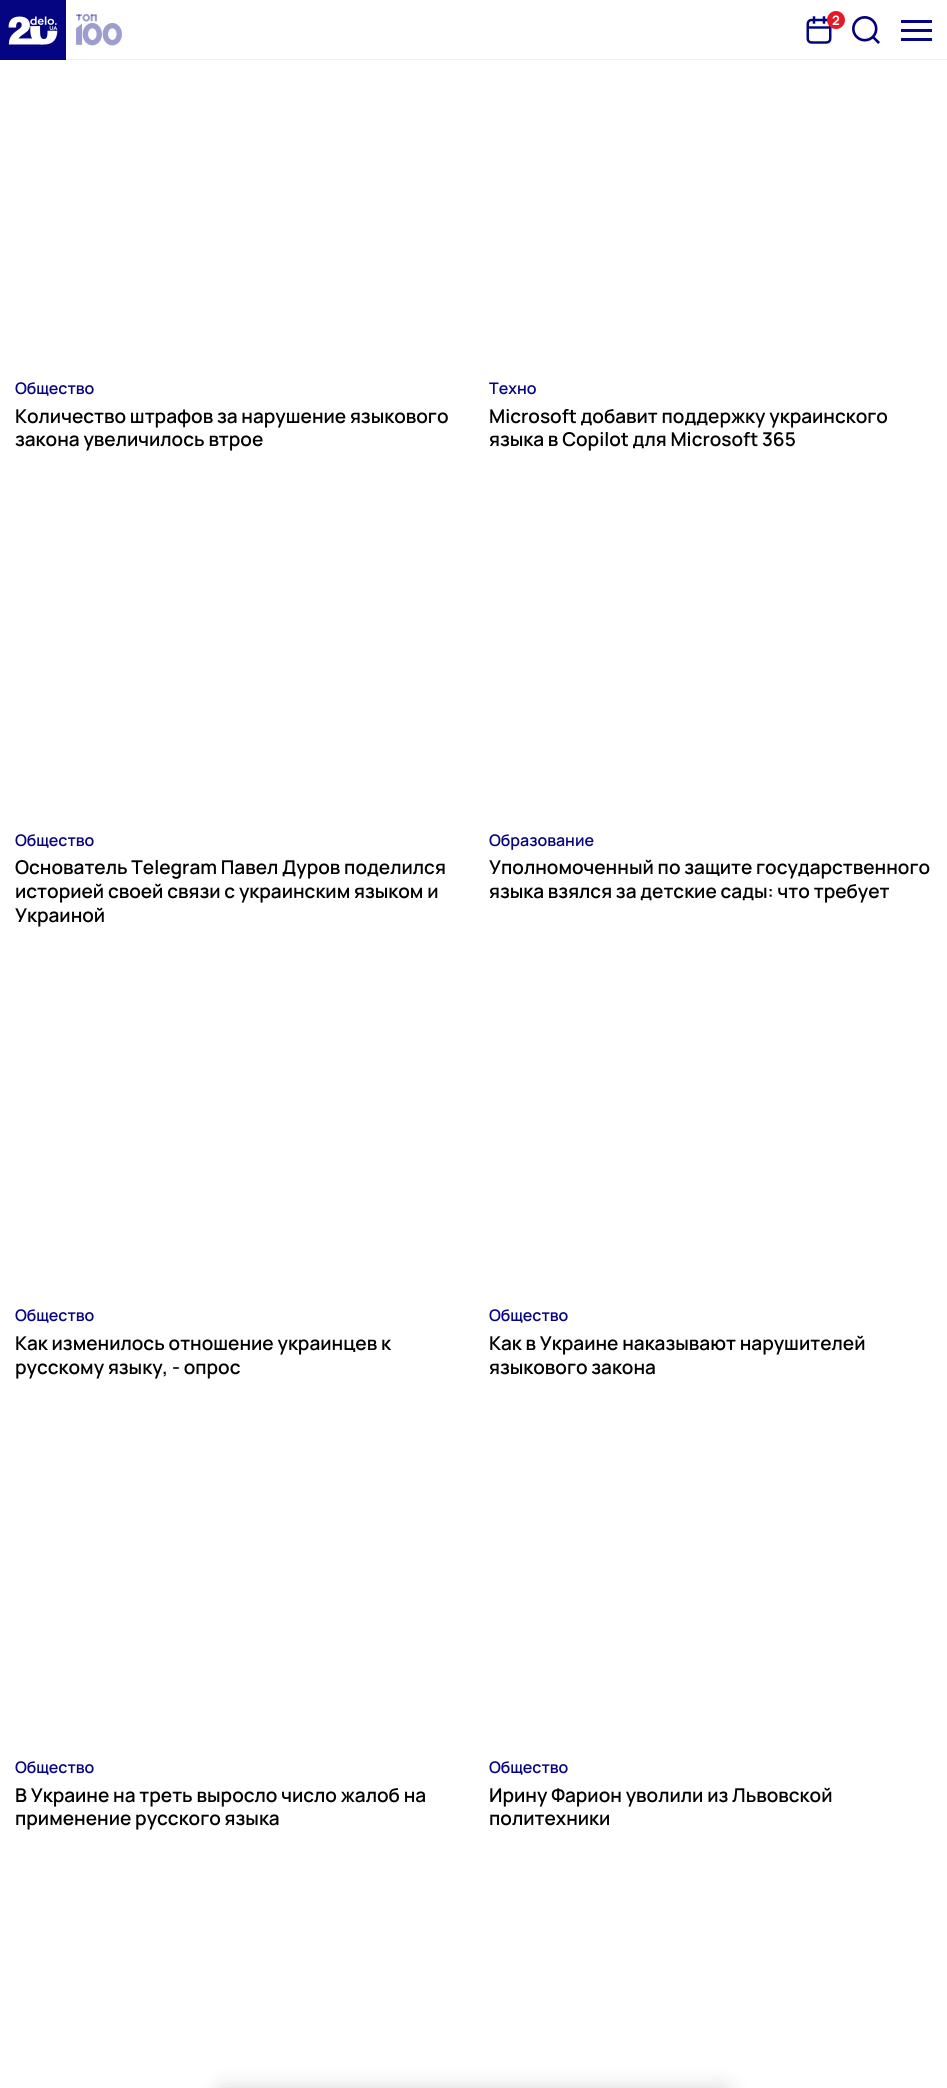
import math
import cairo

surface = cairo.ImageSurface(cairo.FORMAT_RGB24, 947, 2088)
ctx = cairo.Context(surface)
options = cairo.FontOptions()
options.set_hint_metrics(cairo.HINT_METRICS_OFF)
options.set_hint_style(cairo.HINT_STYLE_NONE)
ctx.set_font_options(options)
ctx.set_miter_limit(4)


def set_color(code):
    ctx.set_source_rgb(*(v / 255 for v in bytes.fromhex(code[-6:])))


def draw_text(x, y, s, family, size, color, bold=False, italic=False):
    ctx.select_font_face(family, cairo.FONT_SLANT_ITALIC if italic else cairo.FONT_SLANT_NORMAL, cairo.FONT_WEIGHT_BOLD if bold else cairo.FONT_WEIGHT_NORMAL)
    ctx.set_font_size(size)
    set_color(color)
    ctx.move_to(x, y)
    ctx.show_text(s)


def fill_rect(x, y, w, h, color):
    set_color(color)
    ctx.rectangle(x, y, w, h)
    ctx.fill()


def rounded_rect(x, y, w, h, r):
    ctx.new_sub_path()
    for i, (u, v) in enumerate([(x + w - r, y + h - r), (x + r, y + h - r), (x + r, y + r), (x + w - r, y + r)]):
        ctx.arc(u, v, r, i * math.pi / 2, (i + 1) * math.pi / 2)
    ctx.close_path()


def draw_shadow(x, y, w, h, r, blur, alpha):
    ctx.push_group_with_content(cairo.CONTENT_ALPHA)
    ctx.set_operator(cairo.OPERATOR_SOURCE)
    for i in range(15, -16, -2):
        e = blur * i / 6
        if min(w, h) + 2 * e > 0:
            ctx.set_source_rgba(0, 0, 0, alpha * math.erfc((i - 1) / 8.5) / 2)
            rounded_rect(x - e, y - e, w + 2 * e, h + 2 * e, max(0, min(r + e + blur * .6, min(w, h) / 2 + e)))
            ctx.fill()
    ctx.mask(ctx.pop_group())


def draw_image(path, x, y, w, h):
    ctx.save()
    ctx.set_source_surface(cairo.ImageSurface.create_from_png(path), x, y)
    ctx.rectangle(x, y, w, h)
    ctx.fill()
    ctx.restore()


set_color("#ffffff")
ctx.paint()
draw_image("assets/img1.png", 0, 0, 66, 60)
draw_image("assets/img2.png", 76, 14, 46, 32)
draw_image("assets/img3.png", 806, 16, 26, 28)
set_color("#e61a27")
ctx.arc(836, 20, 9, 0, 2 * math.pi)
ctx.fill()
draw_text(832, 25, "2", "Manrope", 13, "#ffffff", bold=True)
draw_image("assets/img4.png", 852, 16, 28, 28)
fill_rect(901, 20, 31, 3, "#050581")
fill_rect(901, 29, 31, 3, "#050581")
fill_rect(901, 38, 31, 3, "#050581")
fill_rect(66, 59, 881, 1, "#efeff9")
draw_text(15, 394, "Общество", "Manrope SemiBold", 16, "#050581")
draw_text(15, 423, "Количество штрафов за нарушение языкового", "Manrope SemiBold", 19, "#000000")
draw_text(15, 446, "закона увеличилось втрое", "Manrope SemiBold", 19, "#000000")
draw_text(489, 394, "Техно", "Manrope SemiBold", 16, "#050581")
draw_text(489, 423, "Microsoft добавит поддержку украинского", "Manrope SemiBold", 19, "#000000")
draw_text(489, 446, "языка в Copilot для Microsoft 365", "Manrope SemiBold", 19, "#000000")
draw_text(15, 846, "Общество", "Manrope SemiBold", 16, "#050581")
draw_text(15, 874, "Основатель Telegram Павел Дуров поделился", "Manrope SemiBold", 19, "#000000")
draw_text(15, 898, "историей своей связи с украинским языком и", "Manrope SemiBold", 19, "#000000")
draw_text(15, 922, "Украиной", "Manrope SemiBold", 19, "#000000")
draw_text(489, 846, "Образование", "Manrope SemiBold", 16, "#050581")
draw_text(489, 874, "Уполномоченный по защите государственного", "Manrope SemiBold", 19, "#000000")
draw_text(489, 898, "языка взялся за детские сады: что требует", "Manrope SemiBold", 19, "#000000")
draw_text(15, 1321, "Общество", "Manrope SemiBold", 16, "#050581")
draw_text(15, 1350, "Как изменилось отношение украинцев к", "Manrope SemiBold", 19, "#000000")
draw_text(15, 1374, "русскому языку, - опрос", "Manrope SemiBold", 19, "#000000")
draw_text(489, 1321, "Общество", "Manrope SemiBold", 16, "#050581")
draw_text(489, 1350, "Как в Украине наказывают нарушителей", "Manrope SemiBold", 19, "#000000")
draw_text(489, 1374, "языкового закона", "Manrope SemiBold", 19, "#000000")
draw_text(15, 1773, "Общество", "Manrope SemiBold", 16, "#050581")
draw_text(15, 1802, "В Украине на треть выросло число жалоб на", "Manrope SemiBold", 19, "#000000")
draw_text(15, 1825, "применение русского языка", "Manrope SemiBold", 19, "#000000")
draw_text(489, 1773, "Общество", "Manrope SemiBold", 16, "#050581")
draw_text(489, 1802, "Ирину Фарион уволили из Львовской", "Manrope SemiBold", 19, "#000000")
draw_text(489, 1825, "политехники", "Manrope SemiBold", 19, "#000000")
set_color("#000000")
draw_shadow(217, 2088, 514, 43, 8, 11.5, 0.15)
surface.write_to_png("output.png")
